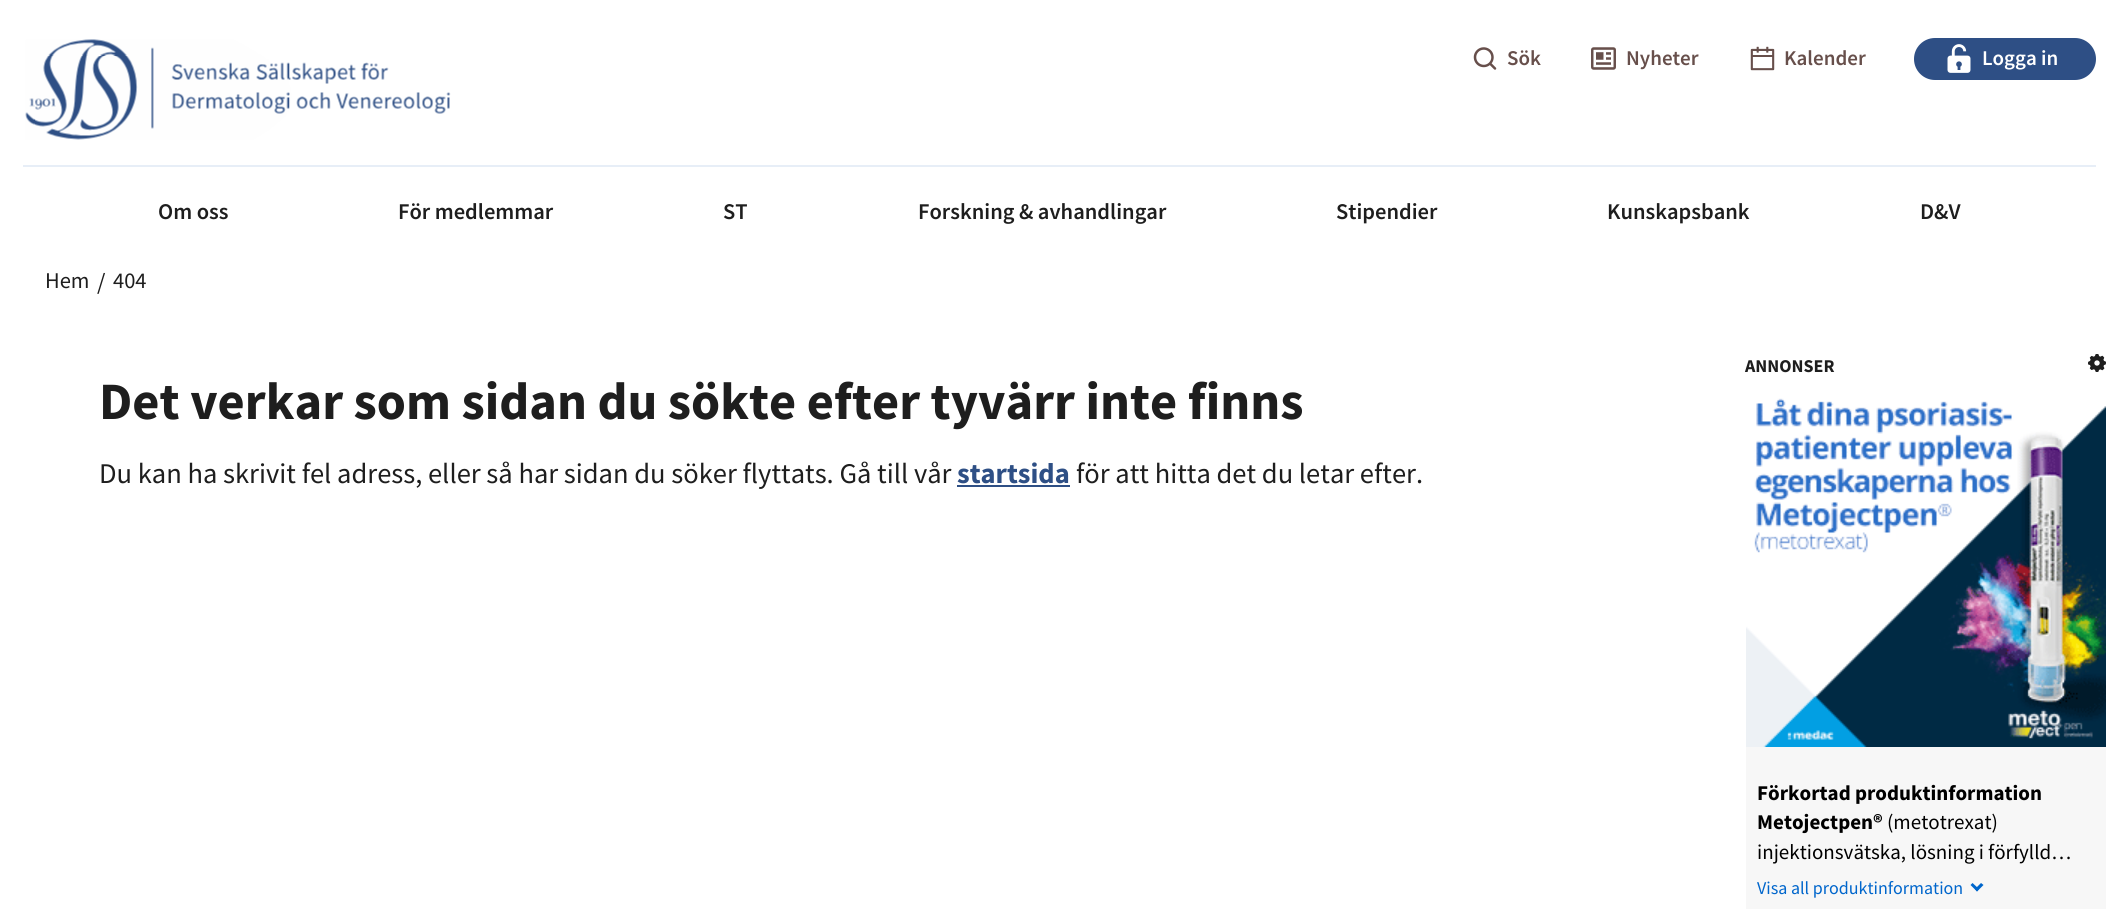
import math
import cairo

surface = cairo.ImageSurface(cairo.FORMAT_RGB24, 2118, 923)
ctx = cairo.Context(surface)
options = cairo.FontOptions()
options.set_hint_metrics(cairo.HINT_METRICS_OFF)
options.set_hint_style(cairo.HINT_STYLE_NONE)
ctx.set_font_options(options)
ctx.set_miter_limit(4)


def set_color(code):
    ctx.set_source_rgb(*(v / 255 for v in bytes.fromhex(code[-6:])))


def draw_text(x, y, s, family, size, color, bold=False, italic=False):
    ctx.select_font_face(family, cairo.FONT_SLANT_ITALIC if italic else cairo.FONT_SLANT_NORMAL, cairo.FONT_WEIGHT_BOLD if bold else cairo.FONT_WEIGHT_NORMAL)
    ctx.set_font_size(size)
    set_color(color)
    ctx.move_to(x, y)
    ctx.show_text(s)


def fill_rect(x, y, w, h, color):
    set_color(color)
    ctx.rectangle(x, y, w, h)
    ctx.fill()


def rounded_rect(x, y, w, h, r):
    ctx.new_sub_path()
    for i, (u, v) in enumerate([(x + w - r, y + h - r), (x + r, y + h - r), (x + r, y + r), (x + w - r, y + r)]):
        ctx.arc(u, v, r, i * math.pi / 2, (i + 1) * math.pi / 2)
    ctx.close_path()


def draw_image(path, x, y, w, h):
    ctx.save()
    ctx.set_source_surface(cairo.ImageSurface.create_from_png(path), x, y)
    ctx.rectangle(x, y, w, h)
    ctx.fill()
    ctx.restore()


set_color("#ffffff")
ctx.paint()
draw_image("assets/img1.png", 25, 39, 426, 101)
draw_image("assets/img2.png", 1473, 47, 24, 23)
draw_text(1507, 65, "Sök", "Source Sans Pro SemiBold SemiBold", 21, "#674f4b")
draw_image("assets/img3.png", 1591, 47, 25, 23)
draw_text(1626, 65, "Nyheter", "Source Sans Pro SemiBold SemiBold", 21, "#674f4b")
draw_image("assets/img4.png", 1750, 46, 25, 25)
draw_text(1784, 65, "Kalender", "Source Sans Pro SemiBold SemiBold", 21, "#674f4b")
set_color("#2e4f85")
rounded_rect(1914, 38, 182, 42, 21)
ctx.fill()
draw_image("assets/img5.png", 1947, 44, 24, 29)
draw_text(1982, 65, "Logga in", "Source Sans Pro SemiBold SemiBold", 21, "#ffffff")
fill_rect(23, 165, 2073, 2, "#e7eef7")
draw_text(158, 219, "Om oss", "Source Sans Pro SemiBold SemiBold", 22.5, "#1e1e1e")
draw_text(398, 219, "För medlemmar", "Source Sans Pro SemiBold SemiBold", 22.5, "#1e1e1e")
draw_text(723, 219, "ST", "Source Sans Pro SemiBold SemiBold", 22.5, "#1e1e1e")
draw_text(918, 219, "Forskning & avhandlingar", "Source Sans Pro SemiBold SemiBold", 22.5, "#1e1e1e")
draw_text(1336, 219, "Stipendier", "Source Sans Pro SemiBold SemiBold", 22.5, "#1e1e1e")
draw_text(1607, 219, "Kunskapsbank", "Source Sans Pro SemiBold SemiBold", 22.5, "#1e1e1e")
draw_text(1920, 219, "D&V", "Source Sans Pro SemiBold SemiBold", 22.5, "#1e1e1e")
draw_text(45, 288, "Hem", "Source Sans Pro", 22.5, "#1e1e1e")
draw_text(97, 290, "/", "Source Sans Pro", 24, "#1e1e1e")
draw_text(113, 288, "404", "Source Sans Pro", 22.5, "#1e1e1e")
draw_text(99, 419, "Det verkar som sidan du sökte efter tyvärr inte finns", "Source Sans Pro", 52.5, "#1e1e1e", bold=True)
draw_text(99, 483, "Du kan ha skrivit fel adress, eller så har sidan du söker flyttats. Gå till vår", "Source Sans Pro", 28.5, "#1e1e1e")
draw_text(957, 483, "startsida", "Source Sans Pro", 28.5, "#2e4f85", bold=True)
fill_rect(957, 485, 113, 2, "#2e4f85")
draw_text(1076, 483, "för att hitta det du letar efter.", "Source Sans Pro", 28.5, "#1e1e1e")
draw_text(1745, 372, "ANNONSER", "Source Sans Pro", 18, "#1e1e1e", bold=True)
draw_image("assets/img6.png", 2088, 354, 18, 18)
fill_rect(1746, 747, 360, 162, "#f7f7f7")
draw_image("assets/img7.png", 1746, 398, 360, 349)
draw_text(1757, 800, "Förkortad produktinformation", "Source Sans Pro", 21, "#000000", bold=True)
draw_text(1757, 829, "Metojectpen®", "Source Sans Pro", 21, "#000000", bold=True)
draw_text(1887, 829, "(metotrexat)", "Source Sans Pro", 21, "#000000")
draw_text(1757, 859, "injektionsvätska, lösning i förfylld…", "Source Sans Pro", 21, "#000000")
draw_text(1757, 894, "Visa all produktinformation", "Source Sans Pro", 18, "#0066cc")
ctx.new_path()
ctx.move_to(1981, 883)
ctx.line_to(1983.5, 885)
ctx.line_to(1977, 891.5)
ctx.line_to(1975, 889)
ctx.close_path()
ctx.fill()
ctx.new_path()
ctx.move_to(1972.5, 883)
ctx.line_to(1979, 889)
ctx.line_to(1977, 891.5)
ctx.line_to(1970.5, 885)
ctx.close_path()
ctx.fill()
surface.write_to_png("output.png")
